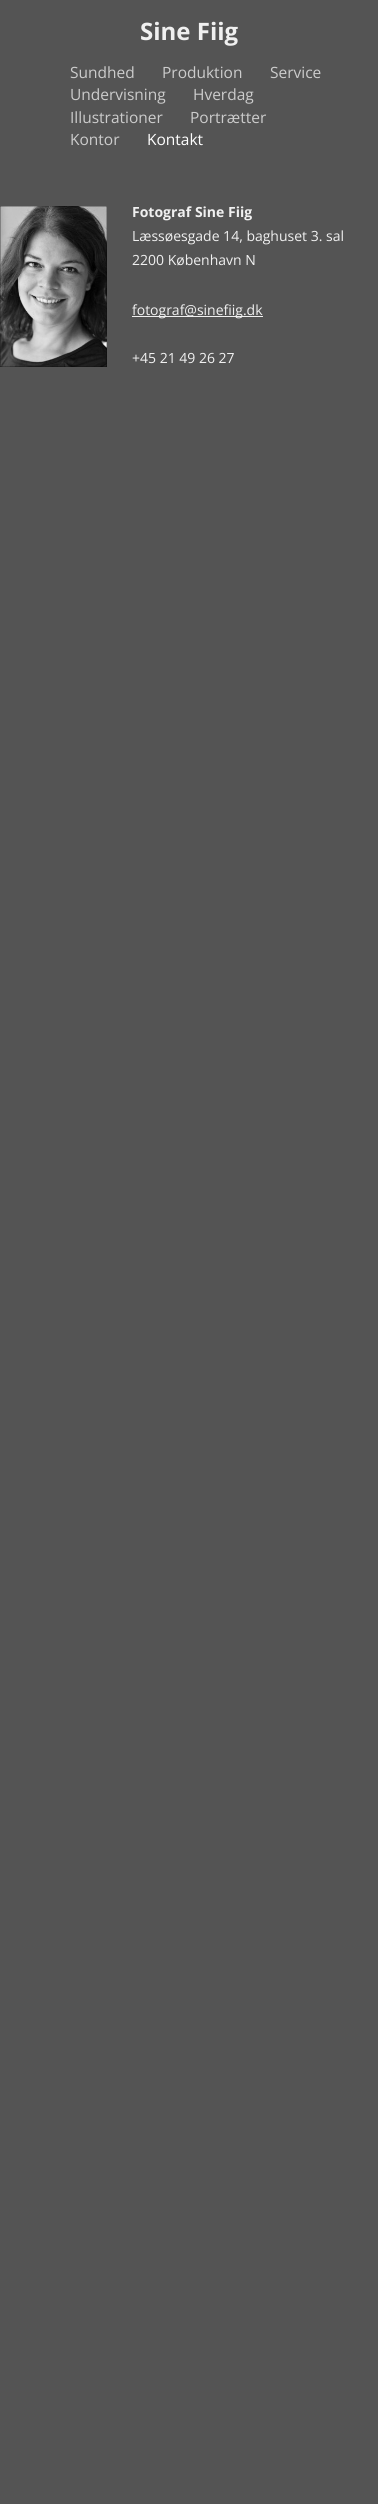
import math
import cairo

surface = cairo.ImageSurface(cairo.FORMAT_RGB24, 378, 2504)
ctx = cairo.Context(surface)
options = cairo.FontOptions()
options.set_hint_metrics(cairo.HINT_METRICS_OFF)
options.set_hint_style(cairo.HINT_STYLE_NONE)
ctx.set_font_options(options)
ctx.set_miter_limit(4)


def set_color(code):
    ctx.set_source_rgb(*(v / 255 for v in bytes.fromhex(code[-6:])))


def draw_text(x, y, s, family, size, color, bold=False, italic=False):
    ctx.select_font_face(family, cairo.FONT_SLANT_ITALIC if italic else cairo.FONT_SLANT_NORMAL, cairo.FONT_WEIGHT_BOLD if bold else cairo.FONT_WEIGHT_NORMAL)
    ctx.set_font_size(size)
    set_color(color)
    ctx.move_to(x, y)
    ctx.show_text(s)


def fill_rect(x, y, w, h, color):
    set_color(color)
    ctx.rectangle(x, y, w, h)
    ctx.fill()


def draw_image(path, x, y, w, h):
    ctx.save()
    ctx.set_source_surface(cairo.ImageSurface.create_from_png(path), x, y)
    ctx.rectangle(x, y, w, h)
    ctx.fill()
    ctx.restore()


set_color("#545454")
ctx.paint()
draw_text(140, 40, "Sine Fiig", "Open Sans", 24, "#f0f0f0", bold=True)
draw_text(70, 78, "Sundhed", "Open Sans", 15.5, "#cccccc")
draw_text(162, 78, "Produktion", "Open Sans", 15.5, "#cccccc")
draw_text(270, 78, "Service", "Open Sans", 15.5, "#cccccc")
draw_text(70, 100, "Undervisning", "Open Sans", 15.5, "#cccccc")
draw_text(193, 100, "Hverdag", "Open Sans", 15.5, "#cccccc")
draw_text(70, 123, "Illustrationer", "Open Sans", 15.5, "#cccccc")
draw_text(190, 123, "Portrætter", "Open Sans", 15.5, "#cccccc")
draw_text(70, 145, "Kontor", "Open Sans", 15.5, "#cccccc")
draw_text(147, 145, "Kontakt", "Open Sans", 15.5, "#ffffff")
draw_image("assets/img1.png", 0, 206, 107, 161)
draw_text(132, 217, "Fotograf Sine Fiig", "Open Sans", 14, "#f0f0f0", bold=True)
draw_text(132, 241, "Læssøesgade 14, baghuset 3. sal", "Open Sans", 14, "#f0f0f0")
draw_text(132, 265, "2200 København N", "Open Sans", 14, "#f0f0f0")
fill_rect(132, 316, 131, 1, "#f0f0f0")
draw_text(132, 315, "fotograf@sinefiig.dk", "Open Sans", 14, "#f0f0f0")
draw_text(132, 363, "+45 21 49 26 27", "Open Sans", 14, "#f0f0f0")
surface.write_to_png("output.png")
